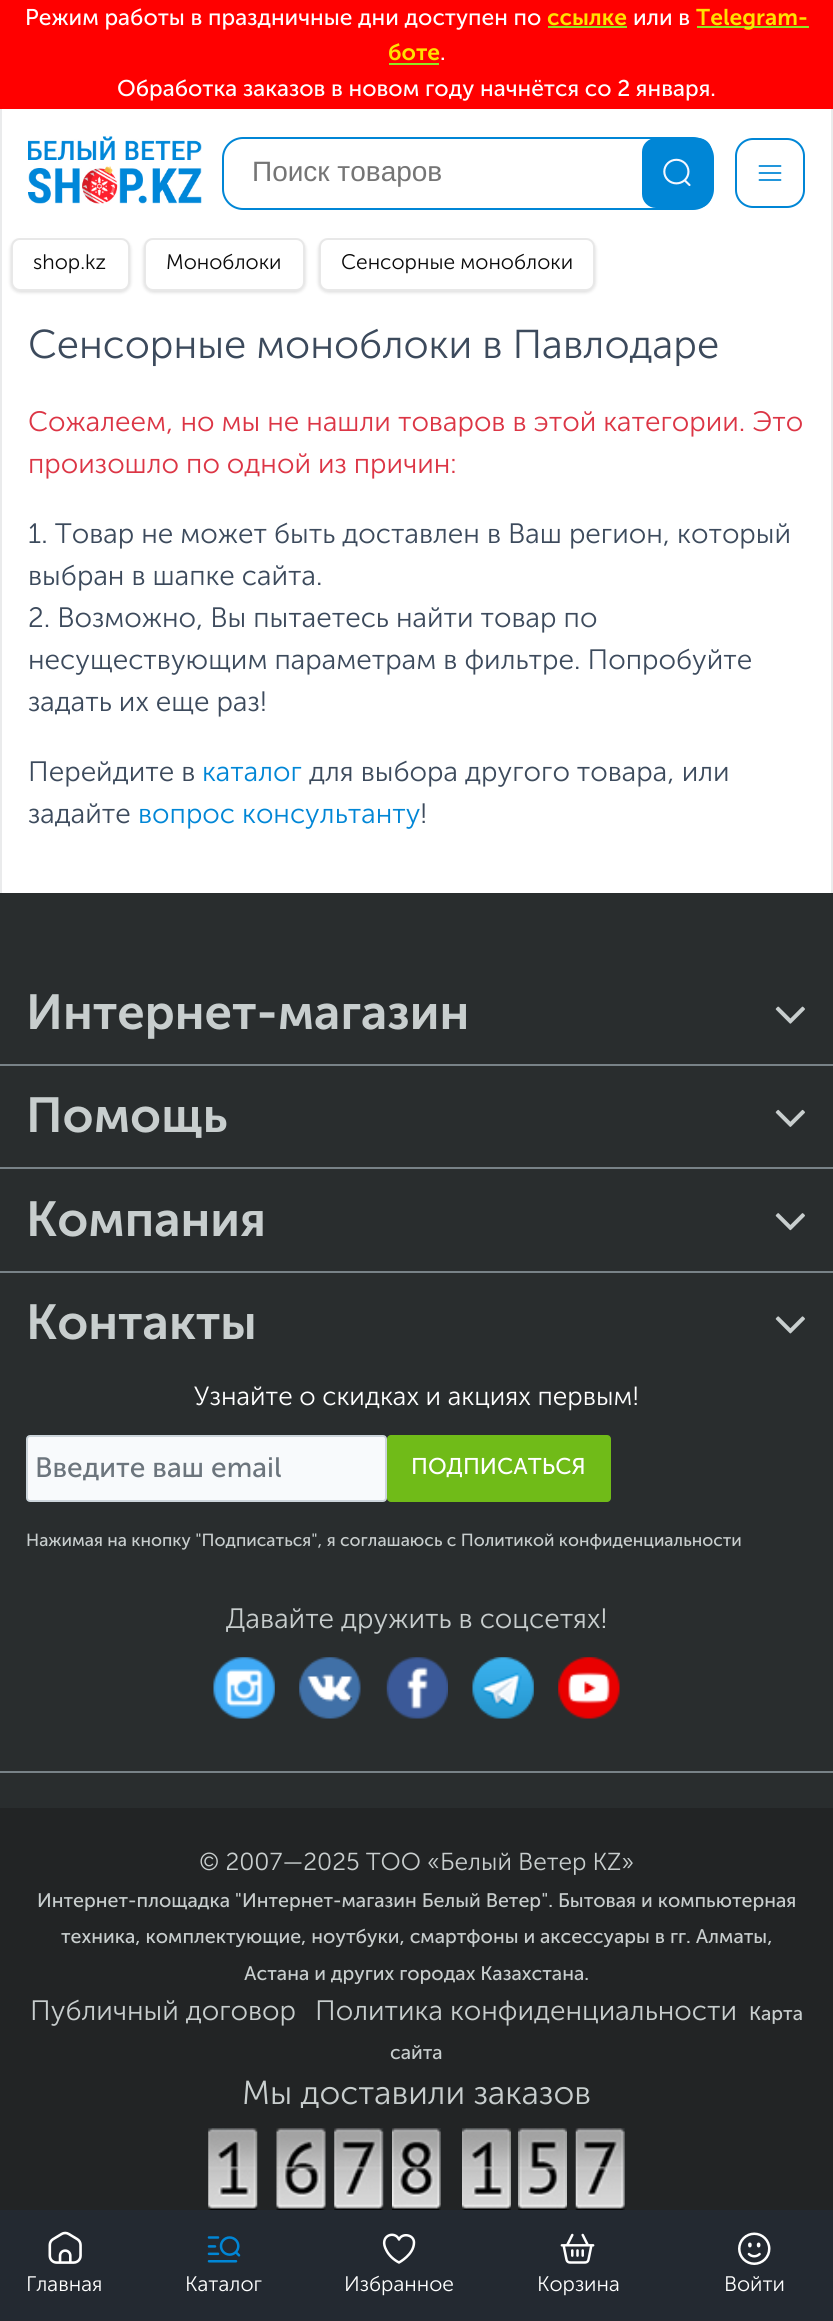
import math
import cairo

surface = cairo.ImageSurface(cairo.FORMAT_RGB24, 833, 2321)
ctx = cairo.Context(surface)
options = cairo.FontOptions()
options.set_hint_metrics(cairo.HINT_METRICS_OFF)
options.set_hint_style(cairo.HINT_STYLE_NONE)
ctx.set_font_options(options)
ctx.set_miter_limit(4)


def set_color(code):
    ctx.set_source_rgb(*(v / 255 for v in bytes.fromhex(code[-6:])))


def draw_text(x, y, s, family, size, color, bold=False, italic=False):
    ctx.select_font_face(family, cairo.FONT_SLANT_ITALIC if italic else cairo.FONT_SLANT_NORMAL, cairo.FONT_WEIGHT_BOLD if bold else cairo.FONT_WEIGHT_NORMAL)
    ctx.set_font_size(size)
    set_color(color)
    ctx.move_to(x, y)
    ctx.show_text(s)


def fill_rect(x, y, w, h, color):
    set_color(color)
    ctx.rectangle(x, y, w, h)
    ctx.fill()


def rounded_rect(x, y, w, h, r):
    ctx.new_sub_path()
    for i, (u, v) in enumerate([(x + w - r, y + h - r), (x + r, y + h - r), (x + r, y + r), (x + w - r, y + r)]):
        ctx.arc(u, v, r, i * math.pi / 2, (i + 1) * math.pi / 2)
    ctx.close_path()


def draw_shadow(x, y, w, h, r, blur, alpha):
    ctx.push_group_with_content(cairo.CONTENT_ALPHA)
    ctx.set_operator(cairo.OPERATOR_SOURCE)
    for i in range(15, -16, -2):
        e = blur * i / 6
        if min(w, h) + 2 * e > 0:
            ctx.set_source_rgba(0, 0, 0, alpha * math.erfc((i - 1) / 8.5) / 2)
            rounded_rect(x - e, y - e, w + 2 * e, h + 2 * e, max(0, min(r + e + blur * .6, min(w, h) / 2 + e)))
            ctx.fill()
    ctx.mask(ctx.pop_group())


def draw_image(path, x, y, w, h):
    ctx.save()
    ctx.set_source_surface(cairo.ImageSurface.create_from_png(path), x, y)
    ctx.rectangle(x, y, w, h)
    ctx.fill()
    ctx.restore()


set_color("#ffffff")
ctx.paint()
fill_rect(0, 0, 833, 109, "#ff0000")
draw_text(25, 25, "Режим работы в праздничные дни доступен по", "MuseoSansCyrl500", 22.75, "#ffffff")
draw_text(547, 25, "ссылке", "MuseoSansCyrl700", 22.75, "#ffe100", bold=True)
fill_rect(548, 26, 79, 2, "#8ee824")
draw_text(633, 25, "или в", "MuseoSansCyrl500", 22.75, "#ffffff")
fill_rect(697, 26, 112, 2, "#8ee824")
draw_text(696, 25, "Telegram-", "MuseoSansCyrl700", 22.75, "#ffe100", bold=True)
draw_text(388, 60, "боте", "MuseoSansCyrl700", 22.75, "#ffe100", bold=True)
draw_text(440, 60, ".", "MuseoSansCyrl500", 22.75, "#ffffff")
fill_rect(389, 63, 50, 2, "#8ee824")
draw_text(117, 96, "Обработка заказов в новом году начнётся со 2 января.", "MuseoSansCyrl500", 22.75, "#ffffff")
set_color("#000000")
draw_shadow(11, 240, 119, 52, 9, 2, 0.16)
draw_shadow(144, 240, 161, 52, 9, 2, 0.16)
draw_shadow(319, 240, 276, 52, 9, 2, 0.16)
fill_rect(17, 237, 572, 1, "#ffffff")
draw_image("assets/img1.png", 28, 136, 174, 68)
rounded_rect(223, 138, 490, 71, 20)
set_color("#0086d6")
ctx.stroke()
draw_text(252, 181, "Поиск товаров", "Liberation Sans", 28, "#757575")
set_color("#0086d6")
rounded_rect(642, 138, 70, 70, 14)
ctx.fill()
draw_image("assets/img2.png", 663, 158, 28, 28)
rounded_rect(736, 139, 68, 68, 17)
ctx.stroke()
ctx.new_path()
ctx.move_to(759.5, 166)
ctx.line_to(780.5, 166)
ctx.move_to(759.5, 173)
ctx.line_to(780.5, 173)
ctx.move_to(759.5, 180)
ctx.line_to(780.5, 180)
ctx.set_line_width(1.8)
ctx.set_line_cap(cairo.LINE_CAP_ROUND)
ctx.set_line_join(cairo.LINE_JOIN_ROUND)
ctx.stroke()
fill_rect(831, 109, 2, 784, "#eaebec")
fill_rect(0, 109, 2, 784, "#eaebec")
set_color("#ffffff")
rounded_rect(11, 238, 119, 53, 9)
ctx.fill()
rounded_rect(12, 239, 117, 51, 8)
ctx.set_source_rgba(0.651, 0.651, 0.651, 0.25)
ctx.set_line_width(2)
ctx.set_line_cap(cairo.LINE_CAP_BUTT)
ctx.set_line_join(cairo.LINE_JOIN_MITER)
ctx.stroke()
draw_text(33, 269, "shop.kz", "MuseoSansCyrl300", 21, "#0a0a0a")
set_color("#ffffff")
rounded_rect(144, 238, 161, 53, 9)
ctx.fill()
rounded_rect(145, 239, 159, 51, 8)
ctx.set_source_rgba(0.651, 0.651, 0.651, 0.25)
ctx.stroke()
draw_text(166, 269, "Моноблоки", "MuseoSansCyrl300", 21, "#0a0a0a")
set_color("#ffffff")
rounded_rect(319, 238, 276, 53, 9)
ctx.fill()
rounded_rect(320, 239, 274, 51, 8)
ctx.set_source_rgba(0.651, 0.651, 0.651, 0.25)
ctx.stroke()
draw_text(341, 269, "Сенсорные моноблоки", "MuseoSansCyrl300", 21, "#0a0a0a")
draw_text(28, 358, "Сенсорные моноблоки в Павлодаре", "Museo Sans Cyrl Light", 40.2, "#3c4a5c")
draw_text(28, 431, "Сожалеем, но мы не нашли товаров в этой категории. Это", "MuseoSansCyrl300", 28, "#dc3545")
draw_text(28, 473, "произошло по одной из причин:", "MuseoSansCyrl300", 28, "#dc3545")
draw_text(28, 543, "1. Товар не может быть доставлен в Ваш регион, который", "MuseoSansCyrl300", 28, "#3c4a5c")
draw_text(28, 585, "выбран в шапке сайта.", "MuseoSansCyrl300", 28, "#3c4a5c")
draw_text(28, 627, "2. Возможно, Вы пытаетесь найти товар по", "MuseoSansCyrl300", 28, "#3c4a5c")
draw_text(28, 669, "несуществующим параметрам в фильтре. Попробуйте", "MuseoSansCyrl300", 28, "#3c4a5c")
draw_text(28, 711, "задать их еще раз!", "MuseoSansCyrl300", 28, "#3c4a5c")
draw_text(28, 781, "Перейдите в", "MuseoSansCyrl300", 28, "#3c4a5c")
draw_text(202, 781, "каталог", "MuseoSansCyrl300", 28, "#0086d6")
draw_text(309, 781, "для выбора другого товара, или", "MuseoSansCyrl300", 28, "#3c4a5c")
draw_text(28, 823, "задайте", "MuseoSansCyrl300", 28, "#3c4a5c")
draw_text(138, 823, "вопрос консультанту", "MuseoSansCyrl300", 28, "#0086d6")
draw_text(420, 823, "!", "MuseoSansCyrl300", 28, "#3c4a5c")
fill_rect(0, 893, 833, 915, "#292d2e")
fill_rect(0, 1064, 833, 2, "#788287")
draw_text(26, 1029, "Интернет-магазин", "MuseoSansCyrl700", 49, "#c8cece", bold=True)
draw_image("assets/img3.png", 775, 1006, 30, 18)
fill_rect(0, 1167, 833, 2, "#788287")
draw_text(26, 1132, "Помощь", "MuseoSansCyrl700", 49, "#c8cece", bold=True)
draw_image("assets/img4.png", 775, 1109, 30, 18)
fill_rect(0, 1271, 833, 2, "#788287")
draw_text(26, 1236, "Компания", "MuseoSansCyrl700", 49, "#c8cece", bold=True)
draw_image("assets/img5.png", 775, 1213, 30, 18)
fill_rect(0, 1771, 833, 2, "#788287")
draw_text(26, 1339, "Контакты", "MuseoSansCyrl700", 49, "#c8cece", bold=True)
draw_image("assets/img6.png", 775, 1316, 30, 18)
draw_text(194, 1405, "Узнайте о скидках и акциях первым!", "Museo Sans Cyrl Light", 26.25, "#ffffff")
set_color("#f8fafc")
rounded_rect(27, 1436, 359, 65, 3)
ctx.fill_preserve()
set_color("#ccd5db")
ctx.stroke()
draw_text(35, 1477, "Введите ваш email", "MuseoSansCyrl500", 28, "#6c757d")
set_color("#70bb18")
rounded_rect(387, 1435, 224, 67, 4)
ctx.fill()
draw_text(411, 1474, "ПОДПИСАТЬСЯ", "MuseoSansCyrl500", 22.75, "#ffffff")
draw_text(26, 1546, "Нажимая на кнопку \"Подписаться\", я соглашаюсь с Политикой конфиденциальности", "MuseoSansCyrl500", 17.5, "#c8cece")
draw_text(226, 1628, "Давайте дружить в соцсетях!", "Museo Sans Cyrl Light", 28, "#c8cece")
draw_image("assets/img7.png", 213, 1657, 62, 62)
draw_image("assets/img8.png", 299, 1657, 62, 62)
draw_image("assets/img9.png", 386, 1657, 62, 62)
draw_image("assets/img10.png", 472, 1657, 62, 62)
draw_image("assets/img11.png", 558, 1657, 62, 62)
fill_rect(0, 1808, 833, 402, "#222425")
draw_text(199, 1870, "© 2007—2025 ТОО «Белый Ветер KZ»", "MuseoSansCyrl300", 24.5, "#c8cece")
draw_text(37, 1907, "Интернет-площадка \"Интернет-магазин Белый Ветер\". Бытовая и компьютерная", "MuseoSansCyrl500", 19.6, "#c8cece")
draw_text(61, 1943, "техника, комплектующие, ноутбуки, смартфоны и аксессуары в гг. Алматы,", "MuseoSansCyrl500", 19.6, "#c8cece")
draw_text(244, 1980, "Астана и других городах Казахстана.", "MuseoSansCyrl500", 19.6, "#c8cece")
draw_text(30, 2020, "Публичный договор", "MuseoSansCyrl300", 28, "#c8cece")
draw_text(315, 2020, "Политика конфиденциальности", "MuseoSansCyrl300", 28, "#c8cece")
draw_text(749, 2020, "Карта", "MuseoSansCyrl500", 19.6, "#c8cece")
draw_text(390, 2059, "сайта", "MuseoSansCyrl500", 19.6, "#c8cece")
draw_text(242, 2104, "Мы доставили заказов", "MuseoSansCyrl300", 33.25, "#c8cece")
draw_image("assets/img12.png", 208, 2128, 50, 82)
draw_image("assets/img13.png", 276, 2128, 50, 82)
draw_image("assets/img14.png", 334, 2128, 50, 82)
draw_image("assets/img15.png", 392, 2128, 49, 82)
draw_image("assets/img16.png", 462, 2128, 49, 82)
draw_image("assets/img17.png", 518, 2128, 49, 82)
draw_image("assets/img18.png", 575, 2128, 50, 82)
fill_rect(0, 2210, 833, 111, "#232931")
draw_image("assets/img19.png", 48, 2231, 34, 33)
draw_text(26, 2291, "Главная", "MuseoSansCyrl300", 21, "#ffffff")
draw_image("assets/img20.png", 207, 2236, 34, 27)
draw_text(185, 2291, "Каталог", "MuseoSansCyrl300", 21, "#ffffff")
ctx.new_path()
ctx.move_to(414, 2242.5)
ctx.curve_to(414, 2234.5, 402, 2232.5, 399, 2239.5)
ctx.curve_to(395, 2230, 378, 2235.5, 386.5, 2250.5)
ctx.curve_to(389, 2255.5, 394, 2260, 399, 2262.5)
ctx.curve_to(399, 2262.5, 414, 2254.5, 414, 2242.5)
ctx.close_path()
ctx.set_line_width(2.5)
ctx.set_line_cap(cairo.LINE_CAP_ROUND)
ctx.set_line_join(cairo.LINE_JOIN_ROUND)
ctx.stroke()
draw_text(344, 2291, "Избранное", "MuseoSansCyrl300", 21, "#ffffff")
draw_image("assets/img21.png", 560, 2233, 35, 31)
draw_text(537, 2291, "Корзина", "MuseoSansCyrl300", 21, "#ffffff")
draw_image("assets/img22.png", 738, 2232, 33, 33)
draw_text(724, 2291, "Войти", "MuseoSansCyrl300", 21, "#ffffff")
surface.write_to_png("output.png")
